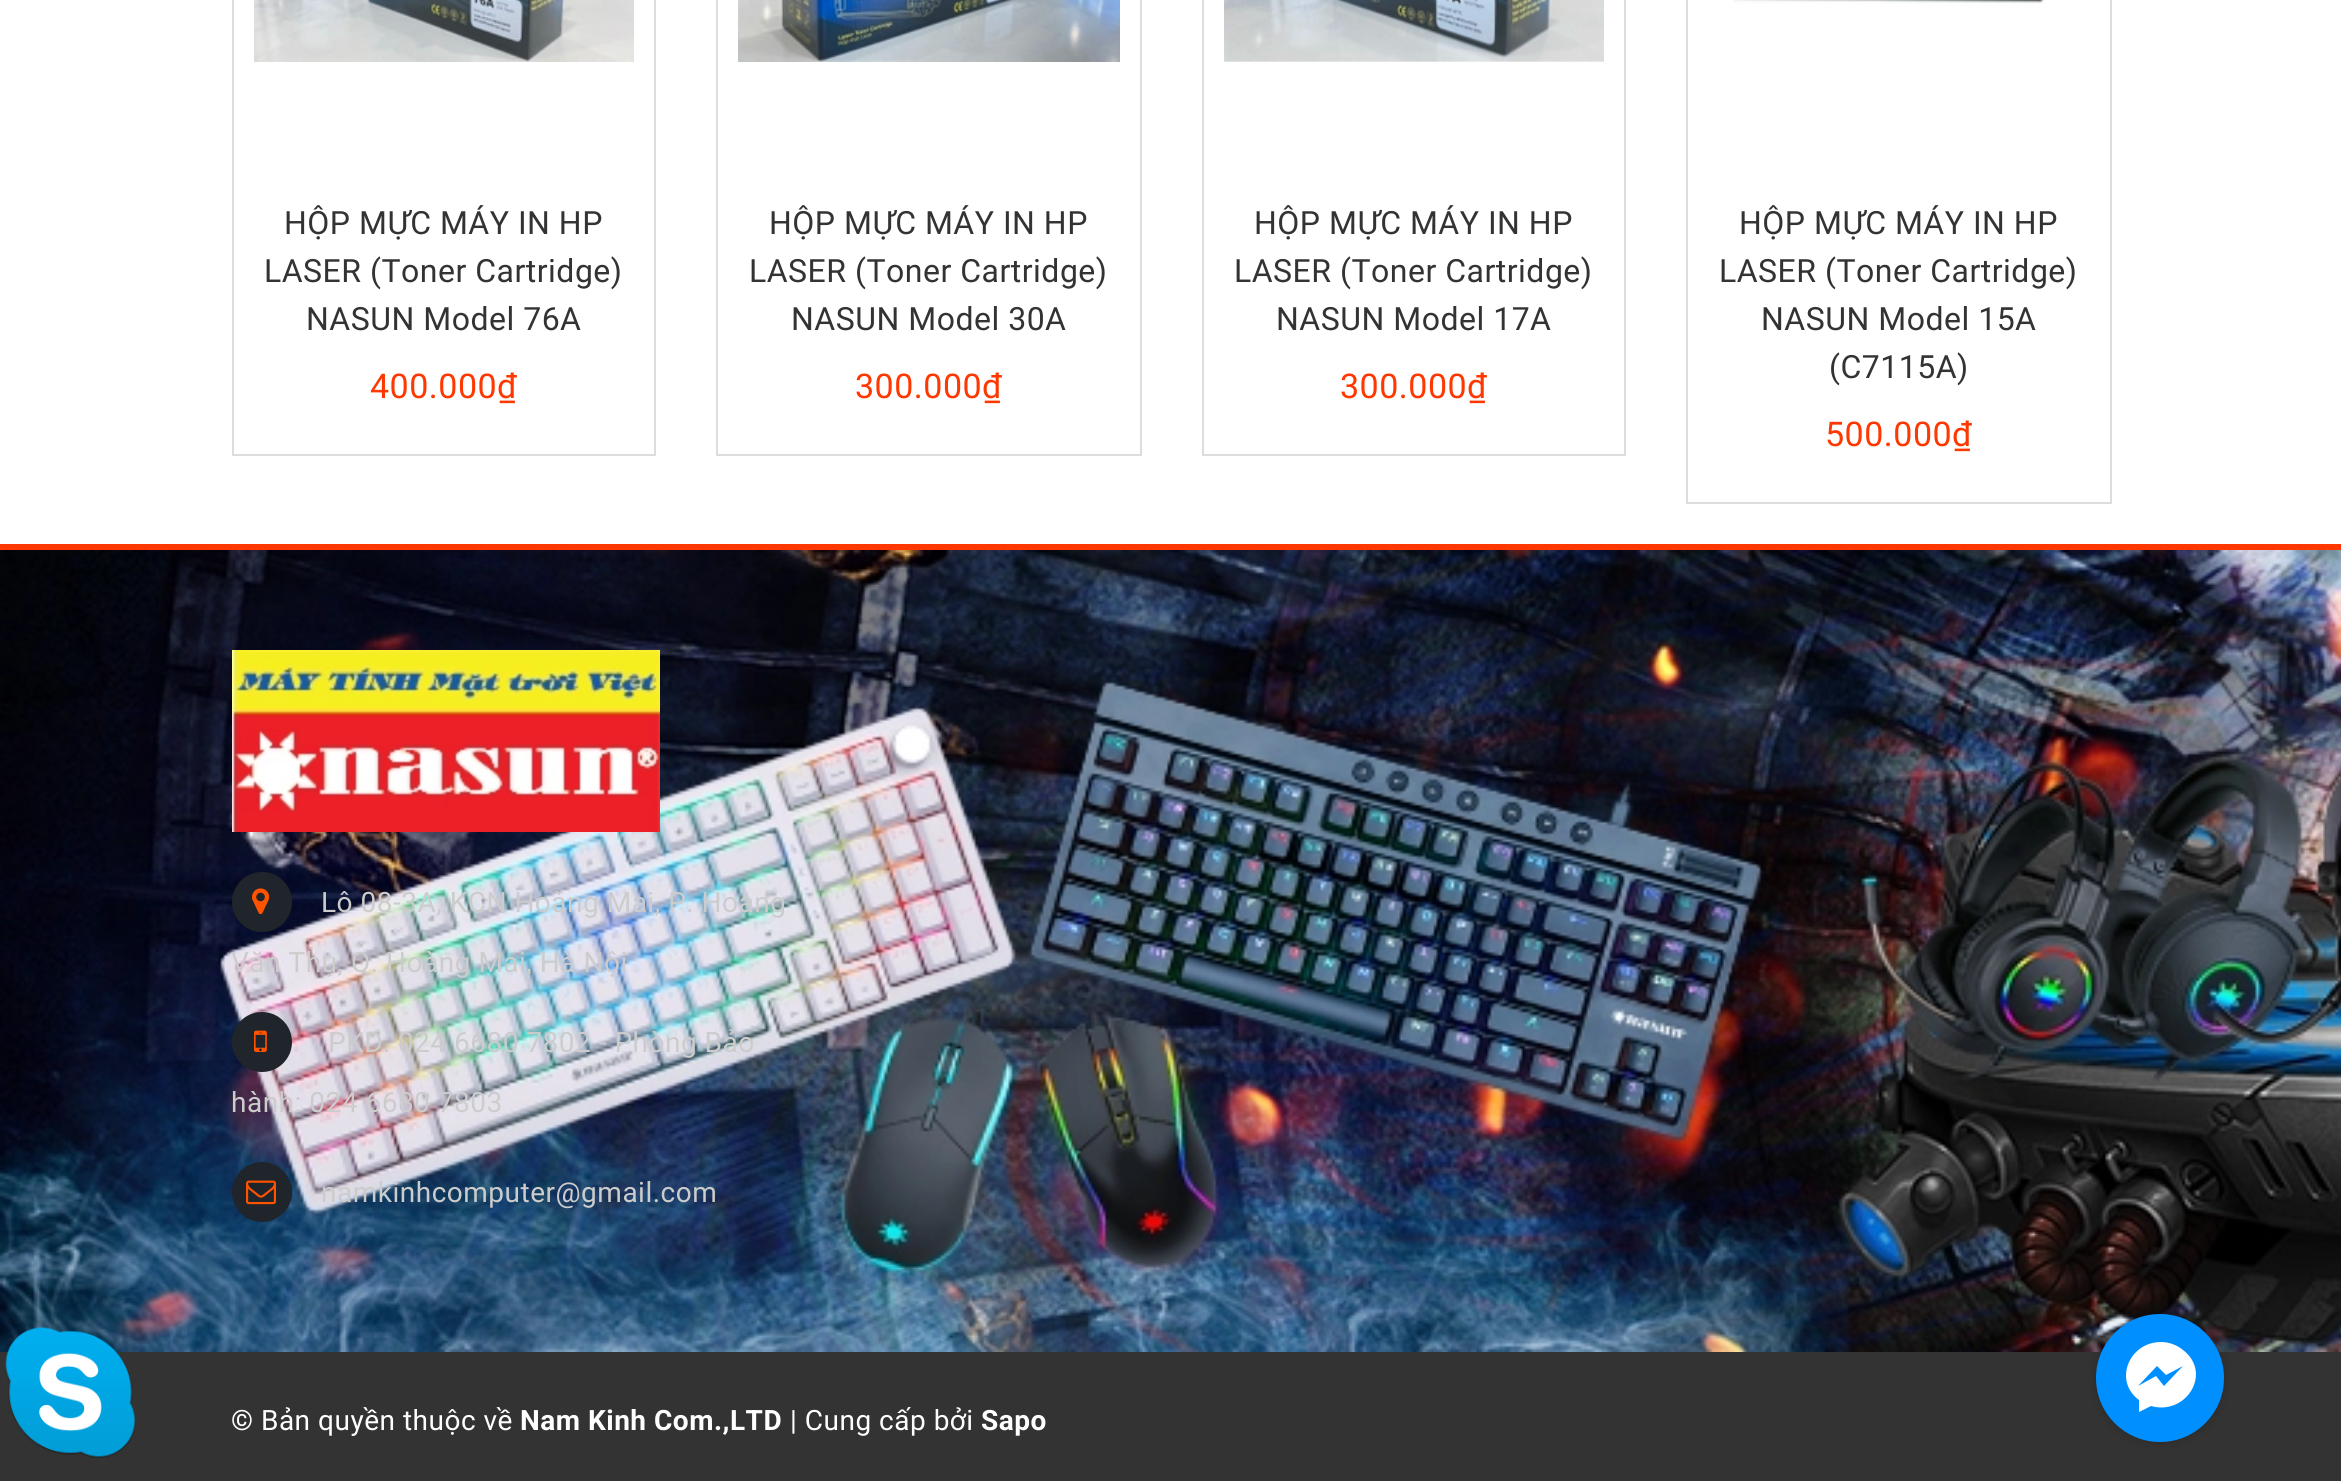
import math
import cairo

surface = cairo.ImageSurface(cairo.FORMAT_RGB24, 2341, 1481)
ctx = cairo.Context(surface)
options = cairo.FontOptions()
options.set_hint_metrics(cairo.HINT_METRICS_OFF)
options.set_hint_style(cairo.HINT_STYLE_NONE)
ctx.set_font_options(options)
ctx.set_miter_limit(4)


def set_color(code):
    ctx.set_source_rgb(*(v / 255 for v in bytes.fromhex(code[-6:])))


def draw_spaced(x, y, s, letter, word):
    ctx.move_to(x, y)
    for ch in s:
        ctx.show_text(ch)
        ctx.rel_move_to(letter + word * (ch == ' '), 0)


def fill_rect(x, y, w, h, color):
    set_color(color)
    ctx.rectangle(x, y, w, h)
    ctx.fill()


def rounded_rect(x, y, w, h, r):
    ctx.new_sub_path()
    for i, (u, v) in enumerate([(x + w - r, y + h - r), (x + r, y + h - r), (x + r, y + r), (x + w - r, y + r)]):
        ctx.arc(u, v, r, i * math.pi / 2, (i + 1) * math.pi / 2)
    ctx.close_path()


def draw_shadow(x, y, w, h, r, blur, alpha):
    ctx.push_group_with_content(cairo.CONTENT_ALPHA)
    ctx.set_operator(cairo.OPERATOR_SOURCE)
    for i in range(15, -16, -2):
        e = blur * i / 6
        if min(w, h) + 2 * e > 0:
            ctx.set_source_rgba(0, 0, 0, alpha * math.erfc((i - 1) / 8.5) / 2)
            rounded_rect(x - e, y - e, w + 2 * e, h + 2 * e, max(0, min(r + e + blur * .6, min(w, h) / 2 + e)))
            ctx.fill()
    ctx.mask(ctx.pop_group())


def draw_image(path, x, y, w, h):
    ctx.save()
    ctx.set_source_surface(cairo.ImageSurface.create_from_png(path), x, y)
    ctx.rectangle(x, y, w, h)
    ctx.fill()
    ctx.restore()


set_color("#ffffff")
ctx.paint()
ctx.rectangle(233, -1, 422, 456)
set_color("#dddddd")
ctx.stroke()
draw_image("assets/img1.png", 254, 0, 380, 62)
ctx.select_font_face("Roboto")
ctx.set_font_size(32)
set_color("#333333")
draw_spaced(284, 234, "HỘP MỰC MÁY IN HP", 0.5, 0)
draw_spaced(264, 282, "LASER (Toner Cartridge)", 0.5, 0)
draw_spaced(306, 330, "NASUN Model 76A", 0.5, 0)
ctx.set_font_size(34)
set_color("#fe3800")
draw_spaced(370, 398, "400.000₫", 0.5, 0)
ctx.rectangle(717, -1, 424, 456)
set_color("#dddddd")
ctx.stroke()
draw_image("assets/img2.png", 738, 0, 382, 62)
ctx.set_font_size(32)
set_color("#333333")
draw_spaced(769, 234, "HỘP MỰC MÁY IN HP", 0.5, 0)
draw_spaced(749, 282, "LASER (Toner Cartridge)", 0.5, 0)
draw_spaced(791, 330, "NASUN Model 30A", 0.5, 0)
ctx.set_font_size(34)
set_color("#fe3800")
draw_spaced(855, 398, "300.000₫", 0.5, 0)
ctx.rectangle(1203, -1, 422, 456)
set_color("#dddddd")
ctx.stroke()
draw_image("assets/img3.png", 1224, 0, 380, 62)
ctx.set_font_size(32)
set_color("#333333")
draw_spaced(1254, 234, "HỘP MỰC MÁY IN HP", 0.5, 0)
draw_spaced(1234, 282, "LASER (Toner Cartridge)", 0.5, 0)
draw_spaced(1276, 330, "NASUN Model 17A", 0.5, 0)
ctx.set_font_size(34)
set_color("#fe3800")
draw_spaced(1340, 398, "300.000₫", 0.5, 0)
ctx.rectangle(1687, -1, 424, 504)
set_color("#dddddd")
ctx.stroke()
draw_image("assets/img4.png", 1733, 0, 311, 4)
ctx.set_font_size(32)
set_color("#333333")
draw_spaced(1739, 234, "HỘP MỰC MÁY IN HP", 0.5, 0)
draw_spaced(1719, 282, "LASER (Toner Cartridge)", 0.5, 0)
draw_spaced(1761, 330, "NASUN Model 15A", 0.5, 0)
draw_spaced(1829, 378, "(C7115A)", 0.5, 0)
ctx.set_font_size(34)
set_color("#fe3800")
draw_spaced(1825, 446, "500.000₫", 0.5, 0)
draw_image("assets/img6.png", 0, 550, 2341, 802)
fill_rect(0, 1352, 2341, 129, "#333333")
draw_image("assets/img5.png", 5, 1327, 131, 131)
fill_rect(0, 544, 2341, 6, "#fe3800")
draw_image("assets/img7.png", 232, 650, 428, 182)
set_color("#1f252a")
ctx.arc(262, 902, 30, 0, 2 * math.pi)
ctx.fill()
draw_image("assets/img8.png", 252, 888, 18, 27)
ctx.set_font_size(28)
set_color("#cccccc")
draw_spaced(321, 912, "Lô 08-3A, KCN Hoàng Mai, P. Hoàng", 0.5, 0)
draw_spaced(231, 972, "Văn Thụ, Q. Hoàng Mai, Hà Nội", 0.5, 0)
set_color("#1f252a")
ctx.new_path()
ctx.arc(262, 1042, 30, 0, 2 * math.pi)
ctx.fill()
draw_image("assets/img9.png", 254, 1030, 13, 22)
set_color("#cccccc")
draw_spaced(328, 1052, "PKD: 024 6680 7802 - Phòng Bảo", 0.5, 0)
draw_spaced(231, 1112, "hành: 024 6680 7803", 0.5, 0)
set_color("#1f252a")
ctx.new_path()
ctx.arc(262, 1192, 30, 0, 2 * math.pi)
ctx.fill()
draw_image("assets/img10.png", 246, 1180, 30, 25)
set_color("#cccccc")
draw_spaced(321, 1202, "namkinhcomputer@gmail.com", 0.5, 0)
set_color("#ffffff")
draw_spaced(231, 1430, "© Bản quyền thuộc về", 0.5, 0)
ctx.select_font_face("Roboto", cairo.FONT_SLANT_NORMAL, cairo.FONT_WEIGHT_BOLD)
draw_spaced(520, 1430, "Nam Kinh Com.,LTD", 0.5, 0)
ctx.select_font_face("Roboto")
draw_spaced(790, 1430, "| Cung cấp bởi", 0.5, 0)
ctx.select_font_face("Roboto", cairo.FONT_SLANT_NORMAL, cairo.FONT_WEIGHT_BOLD)
draw_spaced(981, 1430, "Sapo", 0.5, 0)
set_color("#000000")
draw_shadow(2096, 1314, 128, 128, 64, 5, 0.2)
set_color("#008fff")
ctx.arc(2160, 1378, 64, 0, 2 * math.pi)
ctx.fill()
set_color("#ffffff")
ctx.new_path()
ctx.move_to(2161, 1342)
ctx.curve_to(2129, 1342, 2113, 1381, 2139, 1400)
ctx.line_to(2139, 1412)
ctx.line_to(2151, 1406)
ctx.curve_to(2186, 1416, 2213, 1373, 2183, 1350)
ctx.curve_to(2177, 1345, 2169, 1342, 2161, 1342)
ctx.close_path()
ctx.move_to(2164, 1386)
ctx.line_to(2156, 1376)
ctx.line_to(2138, 1386)
ctx.line_to(2157, 1366)
ctx.line_to(2166, 1375)
ctx.line_to(2183, 1366)
ctx.close_path()
ctx.fill()
surface.write_to_png("output.png")
